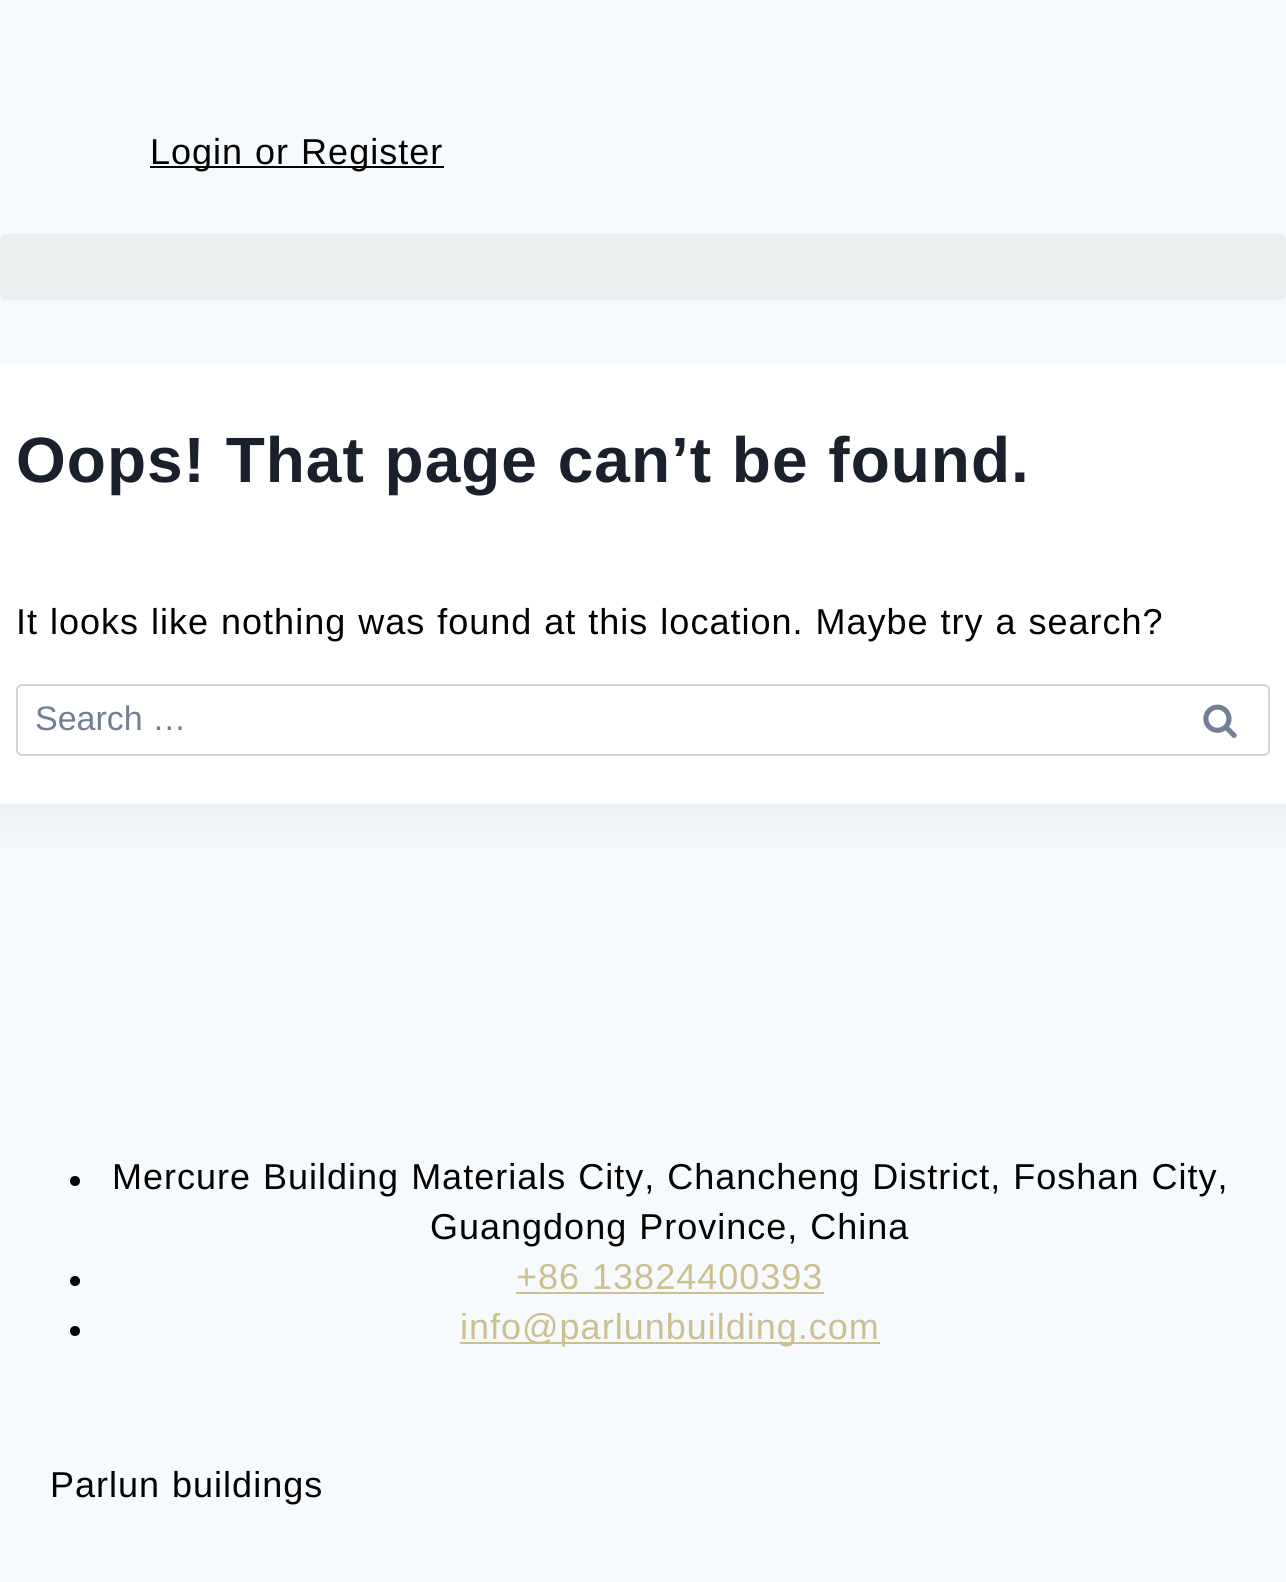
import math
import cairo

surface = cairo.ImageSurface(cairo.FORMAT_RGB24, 1286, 1582)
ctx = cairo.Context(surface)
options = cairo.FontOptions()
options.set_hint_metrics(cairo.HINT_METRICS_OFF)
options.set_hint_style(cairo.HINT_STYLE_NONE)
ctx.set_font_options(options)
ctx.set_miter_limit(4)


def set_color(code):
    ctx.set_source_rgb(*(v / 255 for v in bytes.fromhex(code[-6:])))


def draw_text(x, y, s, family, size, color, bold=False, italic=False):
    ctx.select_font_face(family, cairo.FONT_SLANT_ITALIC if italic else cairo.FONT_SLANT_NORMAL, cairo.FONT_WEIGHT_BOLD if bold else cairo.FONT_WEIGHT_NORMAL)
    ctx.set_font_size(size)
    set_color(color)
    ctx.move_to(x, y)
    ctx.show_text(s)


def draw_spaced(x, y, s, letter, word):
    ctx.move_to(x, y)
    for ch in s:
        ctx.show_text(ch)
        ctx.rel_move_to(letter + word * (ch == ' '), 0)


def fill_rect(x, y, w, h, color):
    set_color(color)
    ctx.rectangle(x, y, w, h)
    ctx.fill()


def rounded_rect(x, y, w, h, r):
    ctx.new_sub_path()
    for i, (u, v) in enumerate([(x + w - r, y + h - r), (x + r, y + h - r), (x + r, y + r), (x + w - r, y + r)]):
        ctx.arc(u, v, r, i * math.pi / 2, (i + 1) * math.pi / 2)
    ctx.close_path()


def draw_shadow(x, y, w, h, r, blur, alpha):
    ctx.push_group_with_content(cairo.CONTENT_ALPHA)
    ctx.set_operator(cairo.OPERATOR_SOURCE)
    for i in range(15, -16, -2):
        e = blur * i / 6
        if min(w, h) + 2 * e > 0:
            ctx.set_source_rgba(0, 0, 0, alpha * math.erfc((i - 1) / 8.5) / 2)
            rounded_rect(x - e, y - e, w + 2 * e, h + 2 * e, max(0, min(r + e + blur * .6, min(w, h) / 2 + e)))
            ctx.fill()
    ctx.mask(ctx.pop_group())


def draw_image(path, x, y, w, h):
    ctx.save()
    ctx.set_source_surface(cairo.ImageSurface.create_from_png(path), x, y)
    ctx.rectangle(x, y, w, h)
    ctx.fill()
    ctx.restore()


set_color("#f7fafc")
ctx.paint()
fill_rect(150, 166, 294, 2, "#020202")
ctx.select_font_face("Liberation Sans")
ctx.set_font_size(36)
draw_spaced(150, 164, "Login or Register", 1, 1)
set_color("#ebeeef")
rounded_rect(0, 234, 1286, 66, 6)
ctx.fill()
set_color("#000000")
draw_shadow(-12, 414, 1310, 400, 0, 25, 0.05)
fill_rect(0, 364, 1286, 440, "#ffffff")
ctx.select_font_face("Liberation Sans", cairo.FONT_SLANT_NORMAL, cairo.FONT_WEIGHT_BOLD)
ctx.set_font_size(64)
set_color("#1a202c")
draw_spaced(16, 482, "Oops! That page can’t be found.", 1, 1)
ctx.select_font_face("Liberation Sans")
ctx.set_font_size(36)
set_color("#020202")
draw_spaced(16, 634, "It looks like nothing was found at this location. Maybe try a search?", 1, 1)
rounded_rect(17, 685, 1252, 70, 5)
set_color("#cbd5e0")
ctx.stroke()
draw_text(35, 730, "Search …", "Liberation Sans", 34, "#718096")
draw_image("assets/img1.png", 1203, 704, 34, 34)
set_color("#020202")
ctx.arc(75, 1181, 5, 0, 2 * math.pi)
ctx.fill()
ctx.set_font_size(36)
draw_spaced(112, 1189, "Mercure Building Materials City, Chancheng District, Foshan City,", 1, 1)
draw_spaced(430, 1239, "Guangdong Province, China", 1, 1)
ctx.new_path()
ctx.arc(75, 1281, 5, 0, 2 * math.pi)
ctx.fill()
set_color("#ccbf90")
draw_spaced(516, 1289, "+86 13824400393", 1, 1)
fill_rect(516, 1292, 308, 2, "#ccbf90")
set_color("#020202")
ctx.new_path()
ctx.arc(75, 1331, 5, 0, 2 * math.pi)
ctx.fill()
fill_rect(460, 1342, 420, 2, "#ccbf90")
draw_spaced(460, 1339, "info@parlunbuilding.com", 1, 0)
set_color("#020202")
draw_spaced(50, 1497, "Parlun buildings", 1, 1)
surface.write_to_png("output.png")
